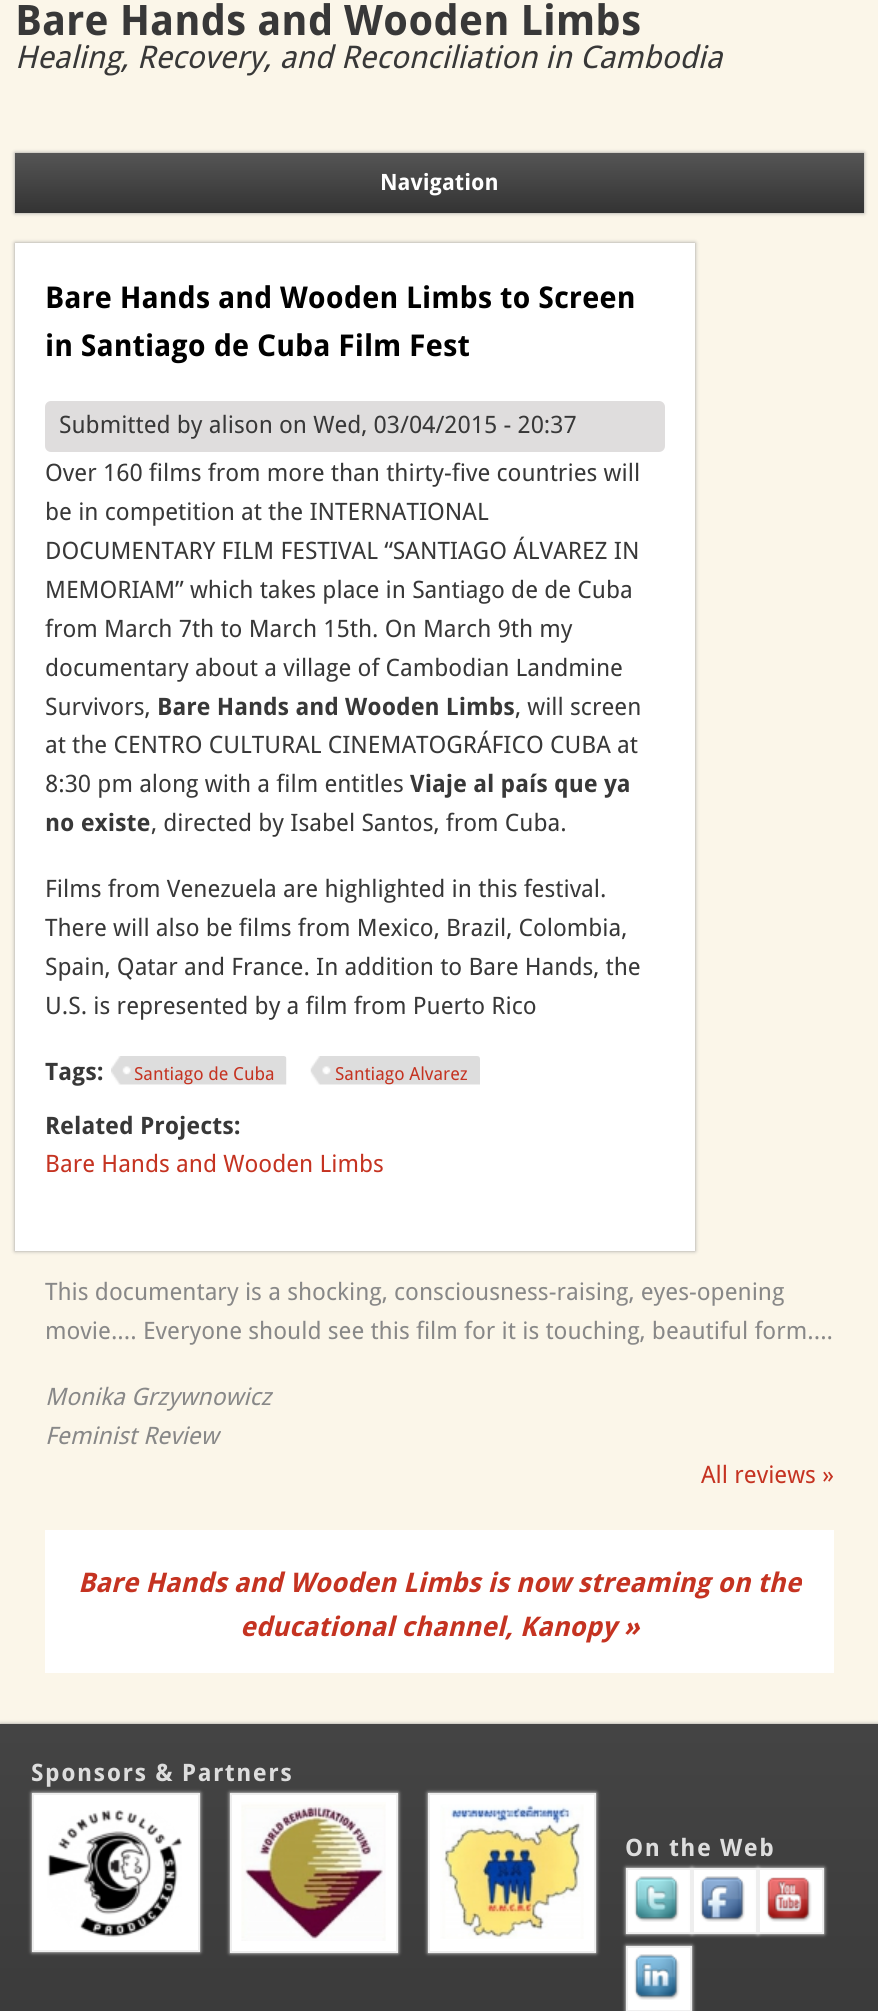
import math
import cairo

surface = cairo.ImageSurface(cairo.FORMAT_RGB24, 878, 2011)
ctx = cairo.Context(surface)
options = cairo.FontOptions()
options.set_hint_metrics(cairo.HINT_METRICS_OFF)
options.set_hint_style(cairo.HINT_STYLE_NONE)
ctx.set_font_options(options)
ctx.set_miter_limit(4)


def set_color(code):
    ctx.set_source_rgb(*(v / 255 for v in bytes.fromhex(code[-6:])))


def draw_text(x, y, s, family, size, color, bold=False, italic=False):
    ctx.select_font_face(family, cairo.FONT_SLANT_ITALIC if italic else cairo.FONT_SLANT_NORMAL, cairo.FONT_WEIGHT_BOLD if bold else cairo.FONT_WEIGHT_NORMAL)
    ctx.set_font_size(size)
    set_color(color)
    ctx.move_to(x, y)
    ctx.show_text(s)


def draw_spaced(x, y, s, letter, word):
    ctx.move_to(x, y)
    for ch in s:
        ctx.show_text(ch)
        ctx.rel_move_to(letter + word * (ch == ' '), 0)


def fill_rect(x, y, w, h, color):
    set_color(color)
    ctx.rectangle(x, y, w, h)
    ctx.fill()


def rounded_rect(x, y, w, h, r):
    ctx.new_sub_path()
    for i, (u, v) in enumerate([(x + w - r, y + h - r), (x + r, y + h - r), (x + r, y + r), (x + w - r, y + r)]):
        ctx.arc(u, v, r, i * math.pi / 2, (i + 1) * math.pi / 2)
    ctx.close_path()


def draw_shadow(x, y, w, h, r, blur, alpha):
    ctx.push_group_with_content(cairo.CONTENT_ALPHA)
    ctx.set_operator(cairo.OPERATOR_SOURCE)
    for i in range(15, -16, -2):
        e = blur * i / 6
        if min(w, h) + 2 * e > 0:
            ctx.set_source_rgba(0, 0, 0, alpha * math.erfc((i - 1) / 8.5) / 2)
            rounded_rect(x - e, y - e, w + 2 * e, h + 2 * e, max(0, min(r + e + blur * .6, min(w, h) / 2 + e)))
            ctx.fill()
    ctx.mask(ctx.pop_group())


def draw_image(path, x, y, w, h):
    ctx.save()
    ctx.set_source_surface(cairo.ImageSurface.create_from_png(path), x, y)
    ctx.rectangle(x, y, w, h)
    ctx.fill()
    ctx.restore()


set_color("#fbf6e9")
ctx.paint()
draw_text(15, 35, "Bare Hands and Wooden Limbs", "Droid Sans", 42, "#383838", bold=True)
draw_text(15, 68, "Healing, Recovery, and Reconciliation in Cambodia", "Droid Sans", 31.2, "#383838", italic=True)
set_color("#999999")
draw_shadow(15, 153, 849, 60, 0, 2, 1)
gradient = cairo.LinearGradient(440, 153, 440, 273)
gradient.add_color_stop_rgba(0, 0.333, 0.333, 0.333, 1)
gradient.add_color_stop_rgba(0.5, 0.2, 0.2, 0.2, 1)
gradient.add_color_stop_rgba(0.5, 0.333, 0.333, 0.333, 1)
gradient.add_color_stop_rgba(1, 0.2, 0.2, 0.2, 1)
ctx.set_source(gradient)
ctx.rectangle(15, 153, 849, 60)
ctx.fill()
draw_text(380, 190, "Navigation", "Droid Sans", 22.5, "#ffffff", bold=True)
set_color("#999999")
draw_shadow(15, 243, 680, 1008, 0, 2, 1)
fill_rect(15, 243, 680, 1008, "#ffffff")
draw_text(45, 308, "Bare Hands and Wooden Limbs to Screen", "Droid Sans", 30, "#000000", bold=True)
draw_text(45, 356, "in Santiago de Cuba Film Fest", "Droid Sans", 30, "#000000", bold=True)
set_color("#dfdddd")
rounded_rect(45, 401, 620, 51, 6)
ctx.fill()
draw_text(59, 433, "Submitted by alison on Wed, 03/04/2015 - 20:37", "Droid Sans", 24, "#383838")
draw_text(45, 481, "Over 160 films from more than thirty-five countries will", "Droid Sans", 24, "#383838")
draw_text(45, 520, "be in competition at the INTERNATIONAL", "Droid Sans", 24, "#383838")
draw_text(45, 559, "DOCUMENTARY FILM FESTIVAL “SANTIAGO ÁLVAREZ IN", "Droid Sans", 24, "#383838")
draw_text(45, 598, "MEMORIAM” which takes place in Santiago de de Cuba", "Droid Sans", 24, "#383838")
draw_text(45, 637, "from March 7th to March 15th. On March 9th my", "Droid Sans", 24, "#383838")
draw_text(45, 676, "documentary about a village of Cambodian Landmine", "Droid Sans", 24, "#383838")
draw_text(45, 715, "Survivors,", "Droid Sans", 24, "#383838")
draw_text(157, 715, "Bare Hands and Wooden Limbs", "Droid Sans", 24, "#383838", bold=True)
draw_text(515, 715, ", will screen", "Droid Sans", 24, "#383838")
draw_text(45, 753, "at the CENTRO CULTURAL CINEMATOGRÁFICO CUBA at", "Droid Sans", 24, "#383838")
draw_text(45, 792, "8:30 pm along with a film entitles", "Droid Sans", 24, "#383838")
draw_text(410, 792, "Viaje al país que ya", "Droid Sans", 24, "#383838", bold=True)
draw_text(45, 831, "no existe", "Droid Sans", 24, "#383838", bold=True)
draw_text(151, 831, ", directed by Isabel Santos, from Cuba.", "Droid Sans", 24, "#383838")
draw_text(45, 897, "Films from Venezuela are highlighted in this festival.", "Droid Sans", 24, "#383838")
draw_text(45, 936, "There will also be films from Mexico, Brazil, Colombia,", "Droid Sans", 24, "#383838")
draw_text(45, 975, "Spain, Qatar and France. In addition to Bare Hands, the", "Droid Sans", 24, "#383838")
draw_text(45, 1014, "U.S. is represented by a film from Puerto Rico", "Droid Sans", 24, "#383838")
draw_text(45, 1080, "Tags:", "Droid Sans", 24, "#383838", bold=True)
draw_image("assets/img1.png", 111, 1056, 176, 29)
draw_text(134, 1080, "Santiago de Cuba", "Droid Sans", 18, "#c53321")
draw_image("assets/img2.png", 310, 1056, 170, 29)
draw_text(335, 1080, "Santiago Alvarez", "Droid Sans", 18, "#c53321")
draw_text(45, 1134, "Related Projects:", "Droid Sans", 24, "#383838", bold=True)
draw_text(45, 1172, "Bare Hands and Wooden Limbs", "Droid Sans", 24, "#c53321")
draw_text(45, 1300, "This documentary is a shocking, consciousness-raising, eyes-opening", "Droid Sans", 24, "#888888")
draw_text(45, 1339, "movie.... Everyone should see this film for it is touching, beautiful form....", "Droid Sans", 24, "#888888")
draw_text(45, 1405, "Monika Grzywnowicz", "Droid Sans", 24, "#888888", italic=True)
draw_text(45, 1444, "Feminist Review", "Droid Sans", 24, "#888888", italic=True)
draw_text(701, 1483, "All reviews »", "Droid Sans", 24, "#c53321")
fill_rect(45, 1530, 789, 143, "#ffffff")
draw_text(78, 1592, "Bare Hands and Wooden Limbs is now streaming on the", "Droid Sans", 27, "#c53321", bold=True, italic=True)
draw_text(240, 1636, "educational channel, Kanopy »", "Droid Sans", 27, "#c53321", bold=True, italic=True)
set_color("#999999")
draw_shadow(0, 1724, 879, 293, 0, 2, 1)
gradient = cairo.LinearGradient(440, 1724, 440, 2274)
gradient.add_color_stop_rgba(0, 0.267, 0.267, 0.267, 1)
gradient.add_color_stop_rgba(1, 0.2, 0.2, 0.2, 1)
ctx.set_source(gradient)
ctx.rectangle(0, 1724, 878, 287)
ctx.fill()
set_color("#eeeeee")
draw_shadow(32, 1793, 168, 159, 0, 2, 1)
draw_shadow(230, 1793, 168, 160, 0, 2, 1)
ctx.select_font_face("Droid Sans", cairo.FONT_SLANT_NORMAL, cairo.FONT_WEIGHT_BOLD)
ctx.set_font_size(24)
set_color("#dddddd")
draw_spaced(31, 1781, "Sponsors & Partners", 1.5, 0)
set_color("#ffffff")
ctx.rectangle(33, 1794, 166, 157)
ctx.fill_preserve()
set_color("#eeeeee")
ctx.stroke()
draw_image("assets/img3.png", 47, 1810, 135, 127)
set_color("#ffffff")
ctx.rectangle(231, 1794, 166, 158)
ctx.fill_preserve()
set_color("#eeeeee")
ctx.stroke()
draw_image("assets/img4.png", 241, 1802, 145, 139)
set_color("#eeeeee")
draw_shadow(428, 1793, 168, 160, 0, 2, 1)
set_color("#ffffff")
ctx.rectangle(429, 1794, 166, 158)
ctx.fill_preserve()
set_color("#eeeeee")
ctx.stroke()
draw_image("assets/img5.png", 440, 1804, 144, 135)
set_color("#dddddd")
draw_spaced(625, 1856, "On the Web", 1.5, 0)
set_color("#eeeeee")
draw_shadow(626, 1868, 66, 66, 0, 2, 1)
set_color("#ffffff")
ctx.rectangle(627, 1869, 64, 64)
ctx.fill_preserve()
set_color("#eeeeee")
ctx.stroke()
set_color("#eeeeee")
draw_shadow(692, 1868, 66, 66, 0, 2, 1)
set_color("#ffffff")
ctx.rectangle(693, 1869, 64, 64)
ctx.fill_preserve()
set_color("#eeeeee")
ctx.stroke()
set_color("#eeeeee")
draw_shadow(758, 1868, 66, 66, 0, 2, 1)
set_color("#ffffff")
ctx.rectangle(759, 1869, 64, 64)
ctx.fill_preserve()
set_color("#eeeeee")
ctx.stroke()
draw_image("assets/img6.png", 634, 1876, 45, 46)
draw_image("assets/img7.png", 700, 1876, 45, 46)
draw_image("assets/img8.png", 766, 1877, 46, 45)
set_color("#eeeeee")
draw_shadow(626, 1946, 66, 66, 0, 2, 1)
set_color("#ffffff")
ctx.rectangle(627, 1947, 64, 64)
ctx.fill_preserve()
set_color("#eeeeee")
ctx.stroke()
draw_image("assets/img9.png", 634, 1954, 46, 46)
surface.write_to_png("output.png")
